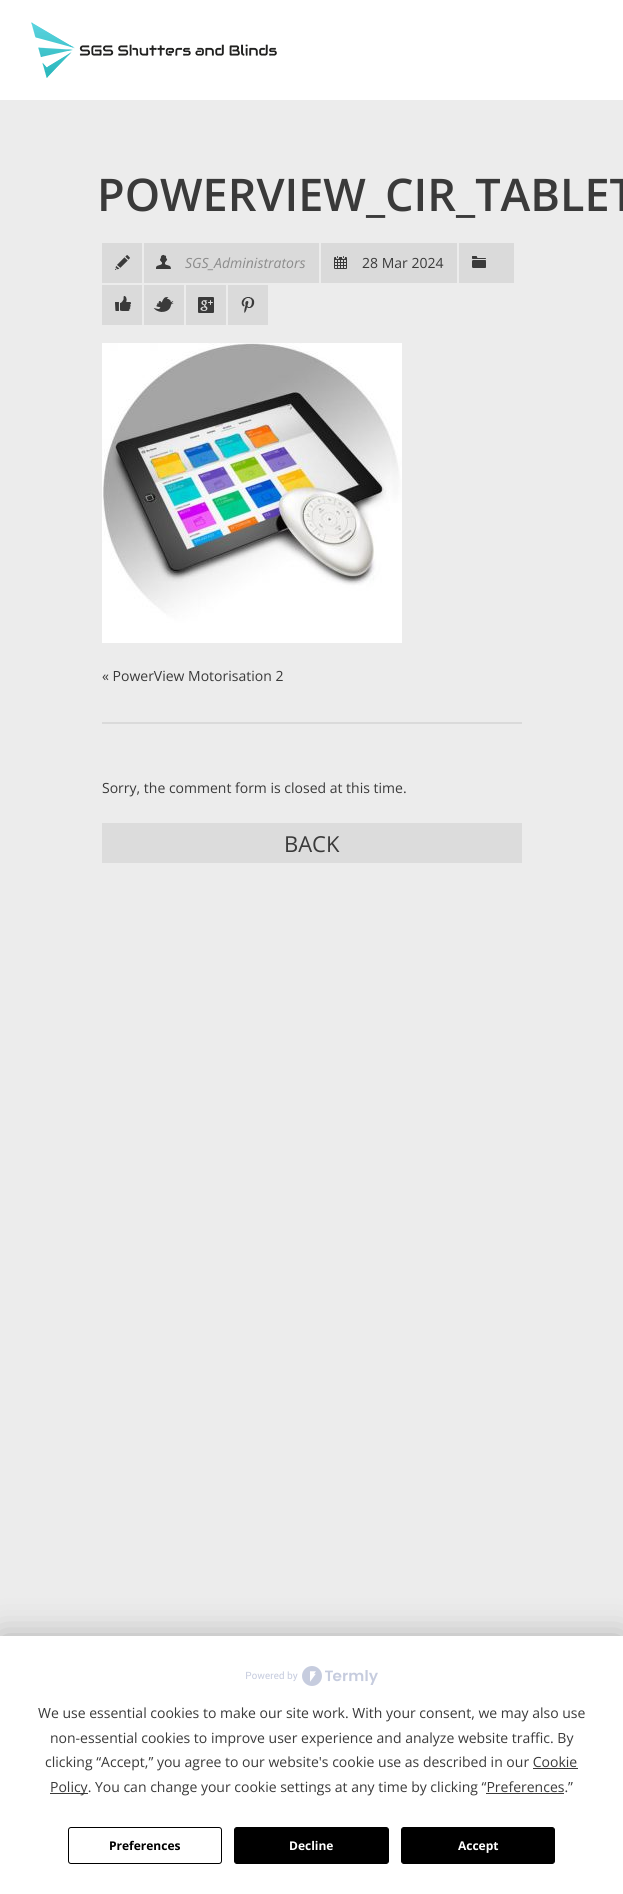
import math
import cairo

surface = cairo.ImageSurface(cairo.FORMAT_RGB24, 623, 1894)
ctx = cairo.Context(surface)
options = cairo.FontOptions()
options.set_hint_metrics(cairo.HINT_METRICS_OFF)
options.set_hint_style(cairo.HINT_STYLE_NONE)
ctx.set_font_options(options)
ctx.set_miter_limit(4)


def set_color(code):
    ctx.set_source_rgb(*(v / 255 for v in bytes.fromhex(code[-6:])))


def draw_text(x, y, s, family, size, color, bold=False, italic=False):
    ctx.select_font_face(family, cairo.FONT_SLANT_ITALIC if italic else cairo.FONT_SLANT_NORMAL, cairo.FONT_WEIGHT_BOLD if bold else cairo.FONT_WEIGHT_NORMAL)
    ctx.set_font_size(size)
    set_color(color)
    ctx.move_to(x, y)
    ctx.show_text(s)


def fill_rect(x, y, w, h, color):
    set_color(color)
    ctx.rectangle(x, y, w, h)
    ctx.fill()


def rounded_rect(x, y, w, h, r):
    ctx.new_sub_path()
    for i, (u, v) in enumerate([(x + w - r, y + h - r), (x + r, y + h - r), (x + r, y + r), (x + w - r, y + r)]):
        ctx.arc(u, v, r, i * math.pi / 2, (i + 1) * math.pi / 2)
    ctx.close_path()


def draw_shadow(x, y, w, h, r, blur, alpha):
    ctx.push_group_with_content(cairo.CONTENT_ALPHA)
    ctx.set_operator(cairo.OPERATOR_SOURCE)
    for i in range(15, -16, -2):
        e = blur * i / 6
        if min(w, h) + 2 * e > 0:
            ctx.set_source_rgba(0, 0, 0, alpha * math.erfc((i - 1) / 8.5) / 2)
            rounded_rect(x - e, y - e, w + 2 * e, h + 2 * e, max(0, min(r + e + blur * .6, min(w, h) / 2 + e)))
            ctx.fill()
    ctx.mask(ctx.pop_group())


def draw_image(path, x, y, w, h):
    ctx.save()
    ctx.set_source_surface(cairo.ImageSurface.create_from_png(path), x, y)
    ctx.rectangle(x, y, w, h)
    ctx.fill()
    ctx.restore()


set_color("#ececec")
ctx.paint()
fill_rect(0, 0, 623, 100, "#ffffff")
draw_image("assets/img1.png", 31, 22, 246, 56)
draw_text(97, 211, "POWERVIEW_CIR_TABLET", "Open Sans SemiBold", 45, "#3a3a3a")
fill_rect(102, 722, 420, 2, "#dadada")
fill_rect(102, 243, 40, 40, "#dadada")
draw_image("assets/img2.png", 115, 255, 15, 15)
fill_rect(144, 243, 175, 40, "#dadada")
draw_image("assets/img3.png", 156, 254, 15, 15)
draw_text(185, 268, "SGS_Administrators", "Open Sans", 14, "#8c8c8c", italic=True)
fill_rect(321, 243, 136, 40, "#dadada")
draw_image("assets/img4.png", 334, 256, 13, 13)
draw_text(362, 268, "28 Mar 2024", "Open Sans", 14, "#3a3a3a")
fill_rect(459, 243, 55, 40, "#dadada")
draw_image("assets/img5.png", 472, 256, 14, 12)
fill_rect(102, 285, 40, 40, "#dadada")
draw_image("assets/img6.png", 115, 296, 16, 15)
fill_rect(144, 285, 40, 40, "#dadada")
draw_image("assets/img7.png", 153, 297, 21, 15)
fill_rect(186, 285, 40, 40, "#dadada")
draw_image("assets/img8.png", 198, 297, 16, 16)
fill_rect(228, 285, 40, 40, "#dadada")
draw_image("assets/img9.png", 241, 297, 14, 16)
draw_image("assets/img10.png", 102, 343, 300, 300)
draw_text(102, 681, "« PowerView Motorisation 2", "Open Sans", 14, "#3a3a3a")
draw_text(102, 793, "Sorry, the comment form is closed at this time.", "Open Sans", 14, "#3a3a3a")
fill_rect(102, 823, 420, 40, "#dcdcdc")
draw_text(284, 852, "BACK", "Open Sans", 22, "#3a3a3a")
set_color("#000000")
draw_shadow(0, 1636, 623, 258, 0, 17.5, 0.25)
fill_rect(0, 1636, 623, 258, "#ffffff")
draw_image("assets/img11.png", 246, 1666, 132, 20)
draw_text(38, 1718, "We use essential cookies to make our site work. With your consent, we may also use", "Open Sans", 14, "#3a3a3a")
draw_text(50, 1743, "non-essential cookies to improve user experience and analyze website traffic. By", "Open Sans", 14, "#3a3a3a")
draw_text(45, 1767, "clicking “Accept,” you agree to our website's cookie use as described in our Cookie", "Open Sans", 14, "#3a3a3a")
fill_rect(50, 1793, 38, 1, "#3a3a3a")
draw_text(50, 1792, "Policy. You can change your cookie settings at any time by clicking “Preferences.”", "Open Sans", 14, "#3a3a3a")
fill_rect(533, 1768, 45, 1, "#3a3a3a")
fill_rect(486, 1793, 78, 1, "#3a3a3a")
rounded_rect(68.5, 1827.5, 153, 36, 2.5)
set_color("#000000")
ctx.set_line_width(1)
ctx.stroke()
draw_text(109, 1850, "Preferences", "Open Sans", 12, "#000000", bold=True)
rounded_rect(234.5, 1827.5, 154, 36, 2.5)
ctx.fill_preserve()
ctx.stroke()
draw_text(289, 1850, "Decline", "Open Sans", 12, "#ffffff", bold=True)
set_color("#000000")
rounded_rect(401.5, 1827.5, 153, 36, 2.5)
ctx.fill_preserve()
ctx.stroke()
draw_text(458, 1850, "Accept", "Open Sans", 12, "#ffffff", bold=True)
surface.write_to_png("output.png")
